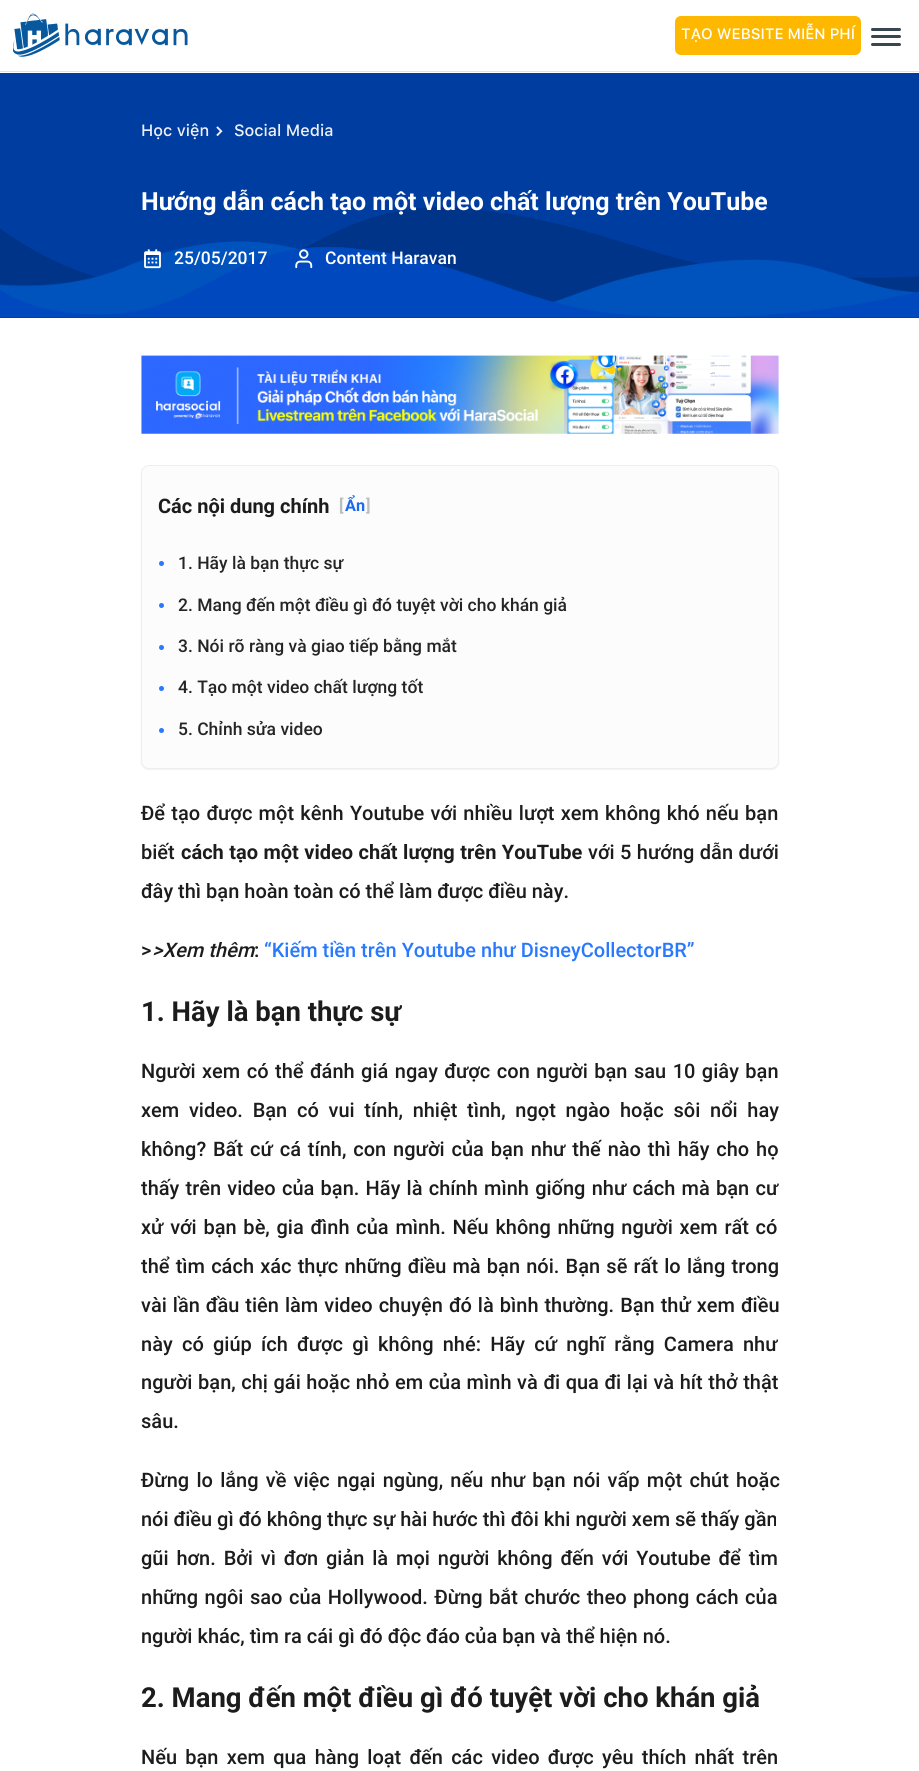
import math
import cairo

surface = cairo.ImageSurface(cairo.FORMAT_RGB24, 919, 1771)
ctx = cairo.Context(surface)
options = cairo.FontOptions()
options.set_hint_metrics(cairo.HINT_METRICS_OFF)
options.set_hint_style(cairo.HINT_STYLE_NONE)
ctx.set_font_options(options)
ctx.set_miter_limit(4)


def set_color(code):
    ctx.set_source_rgb(*(v / 255 for v in bytes.fromhex(code[-6:])))


def draw_text(x, y, s, family, size, color, bold=False, italic=False):
    ctx.select_font_face(family, cairo.FONT_SLANT_ITALIC if italic else cairo.FONT_SLANT_NORMAL, cairo.FONT_WEIGHT_BOLD if bold else cairo.FONT_WEIGHT_NORMAL)
    ctx.set_font_size(size)
    set_color(color)
    ctx.move_to(x, y)
    ctx.show_text(s)


def draw_spaced(x, y, s, letter, word):
    ctx.move_to(x, y)
    for ch in s:
        ctx.show_text(ch)
        ctx.rel_move_to(letter + word * (ch == ' '), 0)


def fill_rect(x, y, w, h, color):
    set_color(color)
    ctx.rectangle(x, y, w, h)
    ctx.fill()


def rounded_rect(x, y, w, h, r):
    ctx.new_sub_path()
    for i, (u, v) in enumerate([(x + w - r, y + h - r), (x + r, y + h - r), (x + r, y + r), (x + w - r, y + r)]):
        ctx.arc(u, v, r, i * math.pi / 2, (i + 1) * math.pi / 2)
    ctx.close_path()


def draw_shadow(x, y, w, h, r, blur, alpha):
    ctx.push_group_with_content(cairo.CONTENT_ALPHA)
    ctx.set_operator(cairo.OPERATOR_SOURCE)
    for i in range(15, -16, -2):
        e = blur * i / 6
        if min(w, h) + 2 * e > 0:
            ctx.set_source_rgba(0, 0, 0, alpha * math.erfc((i - 1) / 8.5) / 2)
            rounded_rect(x - e, y - e, w + 2 * e, h + 2 * e, max(0, min(r + e + blur * .6, min(w, h) / 2 + e)))
            ctx.fill()
    ctx.mask(ctx.pop_group())


def draw_image(path, x, y, w, h):
    ctx.save()
    ctx.set_source_surface(cairo.ImageSurface.create_from_png(path), x, y)
    ctx.rectangle(x, y, w, h)
    ctx.fill()
    ctx.restore()


set_color("#ffffff")
ctx.paint()
fill_rect(0, 71, 919, 1, "#dfe3e8")
draw_image("assets/img1.png", 13, 13, 175, 44)
set_color("#ffb800")
rounded_rect(675, 16, 186, 39, 6)
ctx.fill()
draw_text(681, 39, "TẠO WEBSITE MIỄN PHÍ", "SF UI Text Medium", 15, "#ffffff")
set_color("#37464f")
rounded_rect(871, 35, 30, 3, 1.5)
ctx.fill()
rounded_rect(871, 28, 30, 3, 1.5)
ctx.fill()
rounded_rect(871, 43, 30, 3, 1.5)
ctx.fill()
fill_rect(0, 73, 919, 245, "#003da0")
draw_text(141, 136, "Học viện", "SF UI Text Medium", 16.25, "#f0f0f4")
draw_image("assets/img2.png", 216, 126, 7, 10)
draw_text(234, 136, "Social Media", "SF UI Text Medium", 16.25, "#f0f0f4")
draw_image("assets/img5.png", 0, 207, 919, 111)
draw_text(141, 210, "Hướng dẫn cách tạo một video chất lượng trên YouTube", "Roboto", 25, "#ffffff", bold=True)
draw_image("assets/img3.png", 144, 249, 17, 20)
draw_text(174, 264, "25/05/2017", "Roboto Medium", 17.5, "#ffffff")
draw_image("assets/img4.png", 295, 249, 18, 20)
draw_text(325, 264, "Content Haravan", "Roboto Medium", 17.5, "#ffffff")
draw_image("assets/img6.png", 141, 355, 638, 79)
set_color("#000000")
draw_shadow(141, 466, 638, 304, 8, 0.5, 0.05)
set_color("#fcfcfc")
rounded_rect(141.5, 465.5, 637, 303, 7.5)
ctx.fill_preserve()
set_color("#eeeeee")
ctx.set_line_width(1)
ctx.stroke()
draw_text(158, 513, "Các nội dung chính", "Roboto", 20, "#1c1c1c", bold=True)
draw_text(339, 511, "[", "Roboto", 16.25, "#bcbdc1", bold=True)
draw_text(345, 511, "Ẩn", "Roboto", 16.25, "#1b6aef", bold=True)
draw_text(366, 511, "]", "Roboto", 16.25, "#bcbdc1", bold=True)
set_color("#2979ff")
ctx.new_path()
ctx.arc(161.5, 563.5, 2.5, 0, 2 * math.pi)
ctx.fill()
draw_text(178, 569, "1. Hãy là bạn thực sự", "Roboto Medium", 17.5, "#252525")
set_color("#2979ff")
ctx.new_path()
ctx.arc(161.5, 605.5, 2.5, 0, 2 * math.pi)
ctx.fill()
draw_text(178, 611, "2. Mang đến một điều gì đó tuyệt vời cho khán giả", "Roboto Medium", 17.5, "#252525")
set_color("#2979ff")
ctx.new_path()
ctx.arc(161.5, 647.5, 2.5, 0, 2 * math.pi)
ctx.fill()
draw_text(178, 652, "3. Nói rõ ràng và giao tiếp bằng mắt", "Roboto Medium", 17.5, "#252525")
set_color("#2979ff")
ctx.new_path()
ctx.arc(161.5, 688.5, 2.5, 0, 2 * math.pi)
ctx.fill()
draw_text(178, 693, "4. Tạo một video chất lượng tốt", "Roboto Medium", 17.5, "#252525")
set_color("#2979ff")
ctx.new_path()
ctx.arc(161.5, 730.5, 2.5, 0, 2 * math.pi)
ctx.fill()
draw_text(178, 735, "5. Chỉnh sửa video", "Roboto Medium", 17.5, "#252525")
ctx.set_font_size(20)
set_color("#1c1c1c")
draw_spaced(141, 820, "Để tạo được một kênh Youtube với nhiều lượt xem không khó nếu bạn", 0, 1.25)
draw_text(141, 859, "biết", "Roboto Medium", 20, "#1c1c1c")
ctx.select_font_face("Roboto", cairo.FONT_SLANT_NORMAL, cairo.FONT_WEIGHT_BOLD)
draw_spaced(181, 859, "cách tạo một video chất lượng trên YouTube", 0, 0.5)
ctx.select_font_face("Roboto Medium")
draw_spaced(588, 859, "với 5 hướng dẫn dưới", 0, 0.5)
draw_text(141, 898, "đây thì bạn hoàn toàn có thể làm được điều này.", "Roboto Medium", 20, "#1c1c1c")
draw_text(141, 957, ">", "Roboto Medium", 20, "#1c1c1c")
draw_text(152, 957, ">Xem thêm", "Roboto Medium", 20, "#1c1c1c", italic=True)
draw_text(254, 957, ":", "Roboto Medium", 20, "#1c1c1c")
draw_text(264, 957, "“Kiếm tiền trên Youtube như DisneyCollectorBR”", "Roboto Medium", 20, "#2979ff")
draw_text(141, 1021, "1. Hãy là bạn thực sự", "Roboto", 27.5, "#1c1c1c", bold=True)
ctx.select_font_face("Roboto Medium")
ctx.set_font_size(20)
draw_spaced(141, 1078, "Người xem có thể đánh giá ngay được con người bạn sau 10 giây bạn", 0, 1.5)
draw_spaced(141, 1117, "xem video. Bạn có vui tính, nhiệt tình, ngọt ngào hoặc sôi nổi hay", 0, 4.75)
draw_spaced(141, 1156, "không? Bất cứ cá tính, con người của bạn như thế nào thì hãy cho họ", 0, 1.9)
draw_spaced(141, 1195, "thấy trên video của bạn. Hãy là chính mình giống như cách mà bạn cư", 0, 1.25)
draw_spaced(141, 1234, "xử với bạn bè, gia đình của mình. Nếu không những người xem rất có", 0, 1.75)
draw_spaced(141, 1273, "thể tìm cách xác thực những điều mà bạn nói. Bạn sẽ rất lo lắng trong", 0, 1.2)
draw_spaced(141, 1312, "vài lần đầu tiên làm video chuyện đó là bình thường. Bạn thử xem điều", 0, 1)
draw_spaced(141, 1351, "này có giúp ích được gì không nhé: Hãy cứ nghĩ rằng Camera như", 0, 4.25)
draw_spaced(141, 1389, "người bạn, chị gái hoặc nhỏ em của mình và đi qua đi lại và hít thở thật", 0, 0.6)
draw_text(141, 1428, "sâu.", "Roboto Medium", 20, "#1c1c1c")
draw_spaced(141, 1487, "Đừng lo lắng về việc ngại ngùng, nếu như bạn nói vấp một chút hoặc", 0, 2.25)
draw_text(141, 1526, "nói điều gì đó không thực sự hài hước thì đôi khi người xem sẽ thấy gần", "Roboto Medium", 20, "#1c1c1c")
draw_spaced(141, 1565, "gũi hơn. Bởi vì đơn giản là mọi người không đến với Youtube để tìm", 0, 2.9)
draw_spaced(141, 1604, "những ngôi sao của Hollywood. Đừng bắt chước theo phong cách của", 0, 1.5)
draw_text(141, 1643, "người khác, tìm ra cái gì đó độc đáo của bạn và thể hiện nó.", "Roboto Medium", 20, "#1c1c1c")
draw_text(141, 1707, "2. Mang đến một điều gì đó tuyệt vời cho khán giả", "Roboto", 27.5, "#1c1c1c", bold=True)
ctx.select_font_face("Roboto Medium")
ctx.set_font_size(20)
draw_spaced(141, 1764, "Nếu bạn xem qua hàng loạt đến các video được yêu thích nhất trên", 0, 3.25)
surface.write_to_png("output.png")
